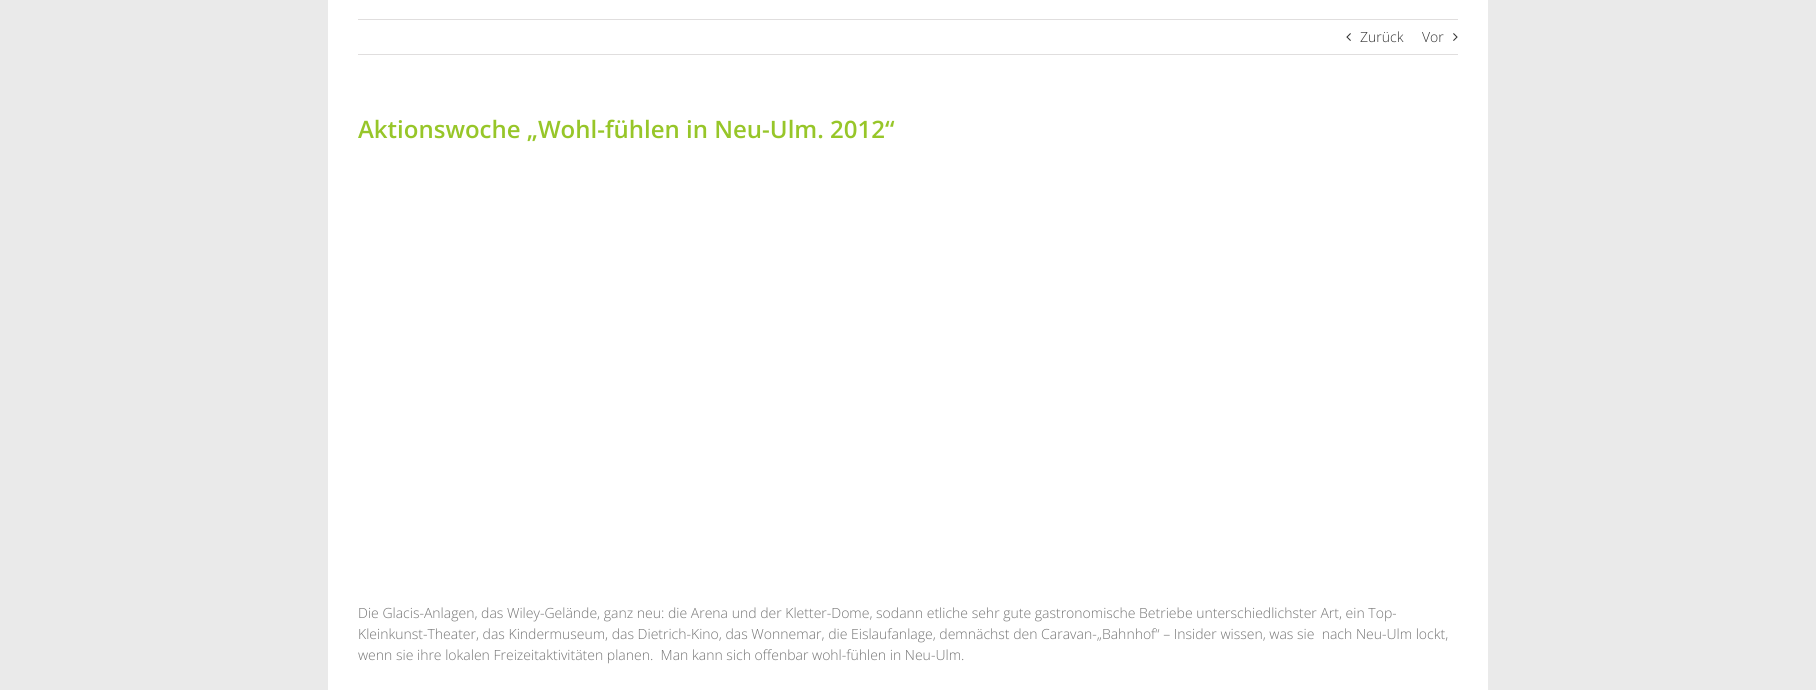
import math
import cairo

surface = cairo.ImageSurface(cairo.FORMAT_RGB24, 1816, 690)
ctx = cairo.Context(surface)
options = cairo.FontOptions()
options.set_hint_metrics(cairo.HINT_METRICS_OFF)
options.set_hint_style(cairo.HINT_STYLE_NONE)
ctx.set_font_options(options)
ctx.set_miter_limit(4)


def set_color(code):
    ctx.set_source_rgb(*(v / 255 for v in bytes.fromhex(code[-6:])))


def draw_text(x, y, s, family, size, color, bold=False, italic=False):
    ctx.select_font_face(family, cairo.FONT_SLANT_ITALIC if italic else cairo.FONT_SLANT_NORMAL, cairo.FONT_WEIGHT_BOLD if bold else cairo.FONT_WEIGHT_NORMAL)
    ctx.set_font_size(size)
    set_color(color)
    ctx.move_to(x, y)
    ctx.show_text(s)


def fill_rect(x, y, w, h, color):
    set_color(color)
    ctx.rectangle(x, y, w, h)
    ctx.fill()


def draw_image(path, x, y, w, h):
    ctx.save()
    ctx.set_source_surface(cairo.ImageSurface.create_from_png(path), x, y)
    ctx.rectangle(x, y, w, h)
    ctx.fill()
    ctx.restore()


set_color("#eaeaea")
ctx.paint()
fill_rect(328, 0, 1160, 690, "#ffffff")
fill_rect(358, 19, 1100, 1, "#e0dede")
fill_rect(358, 54, 1100, 1, "#e0dede")
draw_image("assets/img1.png", 1346, 33, 5, 8)
draw_text(1360, 42, "Zurück", "Open Sans Light", 14, "#333333")
draw_text(1422, 42, "Vor", "Open Sans Light", 14, "#333333")
draw_image("assets/img2.png", 1453, 33, 5, 8)
draw_text(358, 138, "Aktionswoche „Wohl-fühlen in Neu-Ulm. 2012“", "Open Sans SemiBold", 24, "#97c629")
draw_text(358, 618, "Die Glacis-Anlagen, das Wiley-Gelände, ganz neu: die Arena und der Kletter-Dome, sodann etliche sehr gute gastronomische Betriebe unterschiedlichster Art, ein Top-", "Open Sans Light", 14, "#747474")
draw_text(358, 639, "Kleinkunst-Theater, das Kindermuseum, das Dietrich-Kino, das Wonnemar, die Eislaufanlage, demnächst den Caravan-„Bahnhof“ – Insider wissen, was sie  nach Neu-Ulm lockt,", "Open Sans Light", 14, "#747474")
draw_text(358, 660, "wenn sie ihre lokalen Freizeitaktivitäten planen.  Man kann sich offenbar wohl-fühlen in Neu-Ulm.", "Open Sans Light", 14, "#747474")
surface.write_to_png("output.png")
